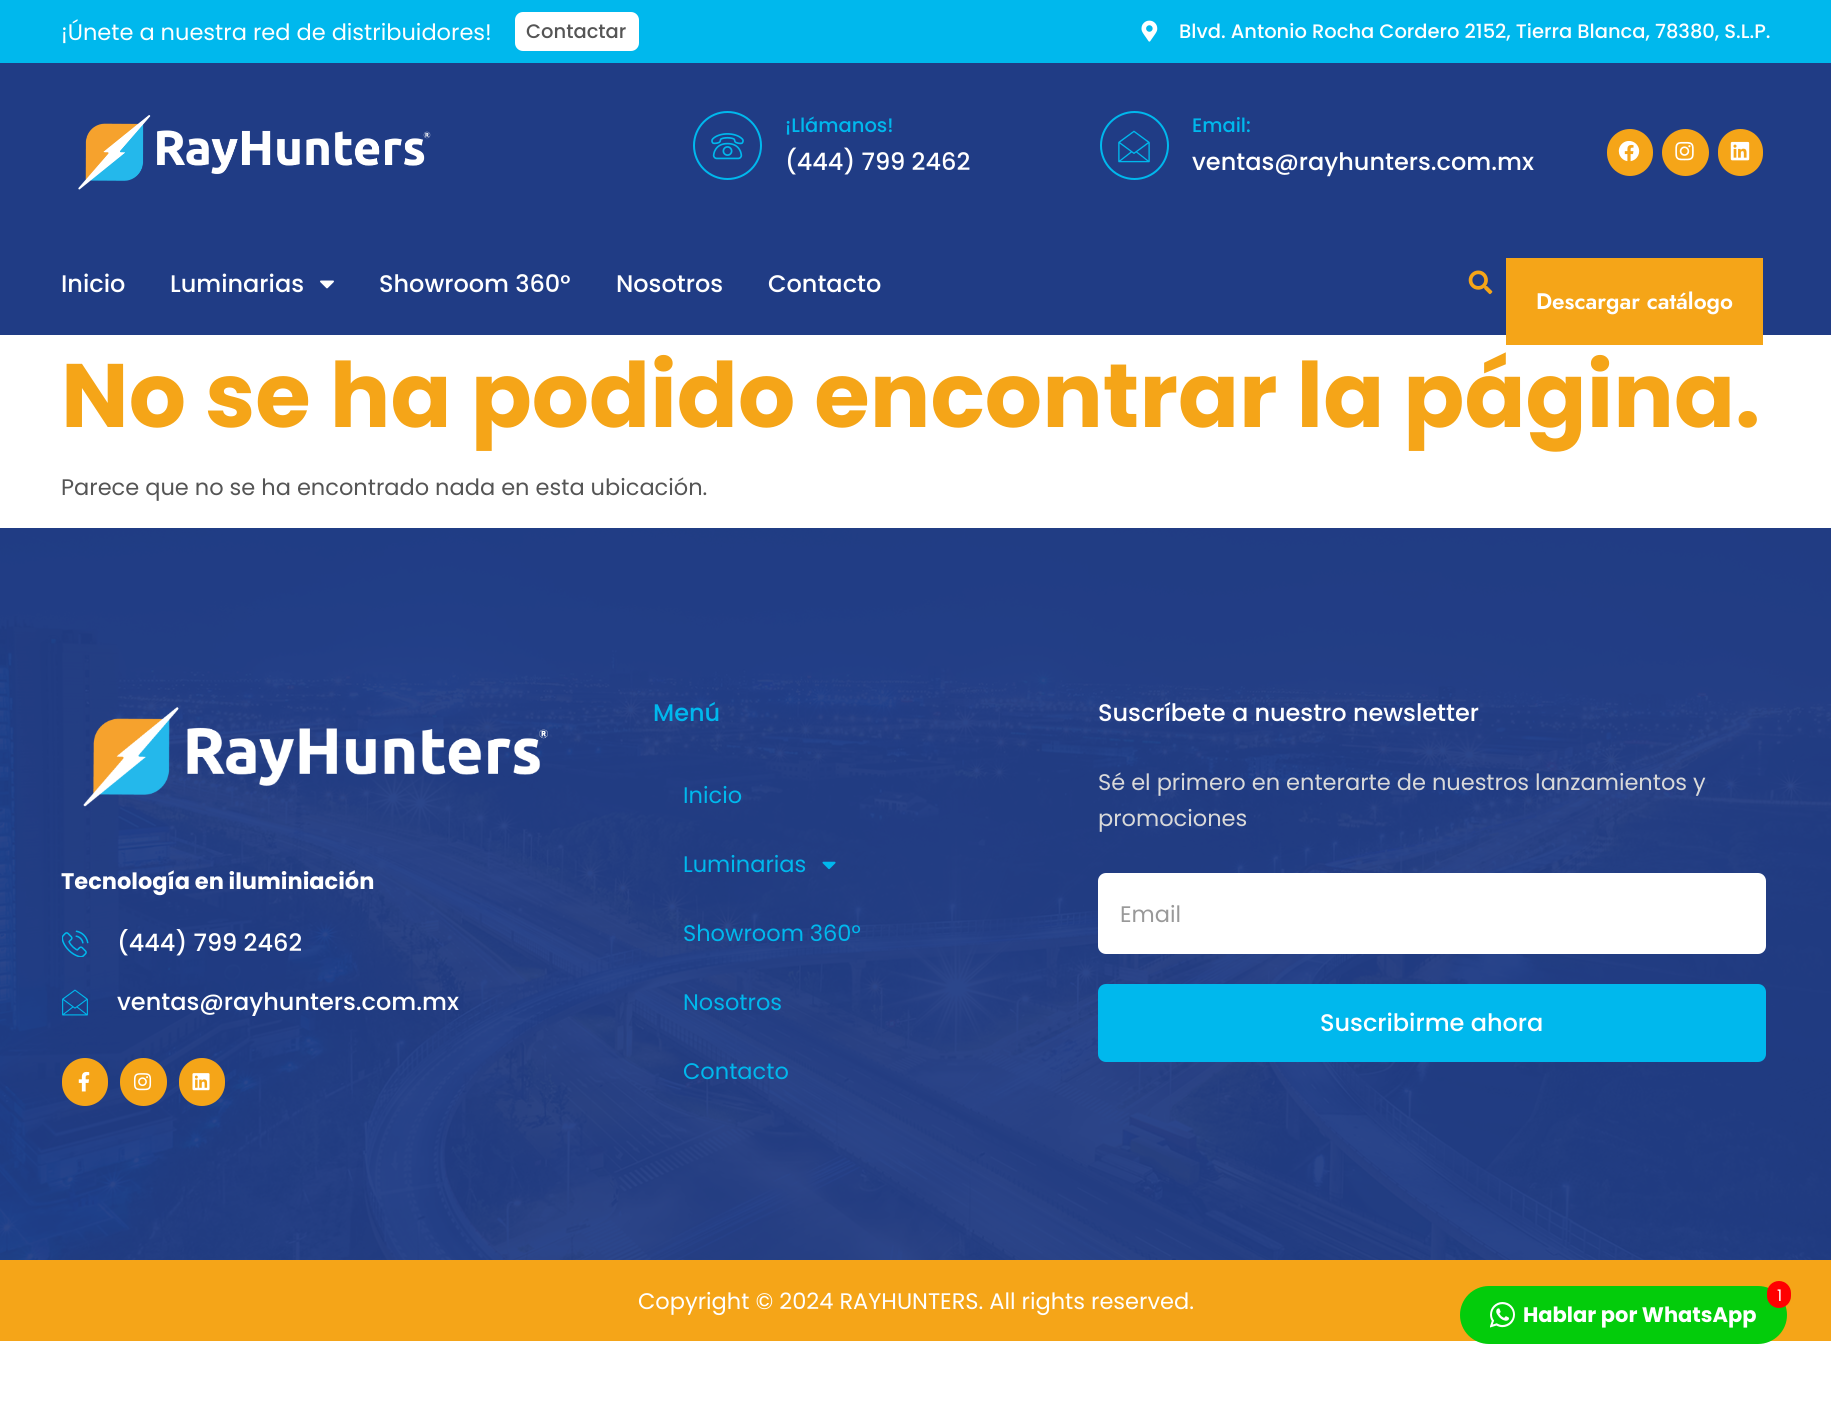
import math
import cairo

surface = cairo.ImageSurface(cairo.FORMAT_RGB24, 1831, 1419)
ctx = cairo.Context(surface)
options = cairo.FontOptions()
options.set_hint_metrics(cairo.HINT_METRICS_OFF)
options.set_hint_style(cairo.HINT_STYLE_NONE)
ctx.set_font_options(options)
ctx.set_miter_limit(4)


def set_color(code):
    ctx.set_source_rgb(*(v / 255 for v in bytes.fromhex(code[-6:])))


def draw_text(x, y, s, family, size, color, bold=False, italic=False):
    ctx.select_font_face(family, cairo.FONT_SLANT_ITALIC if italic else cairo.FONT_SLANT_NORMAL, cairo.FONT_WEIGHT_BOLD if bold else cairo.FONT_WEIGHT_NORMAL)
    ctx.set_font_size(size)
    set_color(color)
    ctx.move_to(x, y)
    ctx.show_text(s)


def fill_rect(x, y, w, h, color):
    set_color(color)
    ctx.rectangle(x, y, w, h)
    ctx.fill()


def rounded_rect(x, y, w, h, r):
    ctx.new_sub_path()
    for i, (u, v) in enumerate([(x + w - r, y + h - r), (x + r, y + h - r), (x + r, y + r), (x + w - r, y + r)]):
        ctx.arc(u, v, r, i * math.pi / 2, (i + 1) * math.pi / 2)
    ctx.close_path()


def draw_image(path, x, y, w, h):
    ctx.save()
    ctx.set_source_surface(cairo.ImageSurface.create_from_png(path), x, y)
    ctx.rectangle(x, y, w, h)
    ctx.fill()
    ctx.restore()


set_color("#ffffff")
ctx.paint()
fill_rect(0, 0, 1831, 63, "#00b8ed")
draw_text(61, 40, "¡Únete a nuestra red de distribuidores!", "Poppins", 22.5, "#ffffff")
rounded_rect(515, 12, 124, 39, 8)
ctx.fill()
draw_text(526, 38, "Contactar", "Poppins Medium", 19.5, "#555555")
draw_image("assets/img1.png", 1141, 20, 17, 22)
draw_text(1179, 38, "Blvd. Antonio Rocha Cordero 2152, Tierra Blanca, 78380, S.L.P.", "Poppins Medium", 19.5, "#ffffff")
fill_rect(0, 63, 1831, 272, "#203c85")
draw_image("assets/img2.png", 78, 115, 353, 75)
ctx.arc(727.5, 145.5, 33.5, 0, 2 * math.pi)
set_color("#00b8ed")
ctx.stroke()
draw_image("assets/img3.png", 711, 133, 33, 27)
draw_text(785, 132, "¡Llámanos!", "Poppins Medium", 19.5, "#00b8ed")
draw_text(785, 170, "(444) 799 2462", "Poppins Medium", 24, "#ffffff")
ctx.new_path()
ctx.arc(1134.5, 145.5, 33.5, 0, 2 * math.pi)
set_color("#00b8ed")
ctx.stroke()
draw_image("assets/img4.png", 1118, 130, 32, 33)
draw_text(1192, 132, "Email:", "Poppins Medium", 19.5, "#00b8ed")
draw_text(1192, 170, "ventas@rayhunters.com.mx", "Poppins Medium", 24, "#ffffff")
set_color("#f5a518")
rounded_rect(1607, 129, 46, 47, 23)
ctx.fill()
draw_image("assets/img5.png", 1618, 141, 22, 21)
ctx.arc(1685.5, 152.5, 23.5, 0, 2 * math.pi)
ctx.fill()
draw_image("assets/img6.png", 1675, 141, 19, 20)
rounded_rect(1718, 129, 45, 47, 22.5)
ctx.fill()
draw_image("assets/img7.png", 1730, 141, 20, 20)
draw_text(61, 292, "Inicio", "Poppins Medium", 24, "#ffffff")
draw_text(170, 292, "Luminarias", "Poppins Medium", 24, "#ffffff")
draw_image("assets/img8.png", 320, 280, 14, 9)
draw_text(379, 292, "Showroom 360°", "Poppins Medium", 24, "#ffffff")
draw_text(616, 292, "Nosotros", "Poppins Medium", 24, "#ffffff")
draw_text(768, 292, "Contacto", "Poppins Medium", 24, "#ffffff")
draw_image("assets/img9.png", 1468, 270, 25, 25)
fill_rect(1506, 258, 257, 87, "#f5a518")
draw_text(1536, 309, "Descargar catálogo", "Jost SemiBold", 22.5, "#ffffff")
draw_text(61, 427, "No se ha podido encontrar la página.", "Poppins", 90, "#f5a518", bold=True)
draw_text(61, 495, "Parece que no se ha encontrado nada en esta ubicación.", "Poppins", 22.5, "#555555")
draw_image("assets/img10.png", 0, 528, 1831, 732)
draw_image("assets/img11.png", 83, 707, 465, 100)
draw_text(61, 889, "Tecnología en iluminiación", "Poppins", 22.5, "#ffffff", bold=True)
draw_image("assets/img12.png", 62, 930, 27, 27)
ctx.save()
ctx.rectangle(62, 929, 508, 28)
ctx.clip()
draw_text(117, 951, "(444) 799 2462", "Poppins Medium", 24, "#ffffff")
ctx.restore()
draw_image("assets/img13.png", 62, 989, 26, 27)
ctx.save()
ctx.rectangle(62, 987, 508, 29)
ctx.clip()
draw_text(117, 1010, "ventas@rayhunters.com.mx", "Poppins Medium", 24, "#ffffff")
ctx.restore()
set_color("#f5a518")
rounded_rect(62, 1058, 46, 48, 23)
ctx.fill()
draw_image("assets/img14.png", 78, 1071, 12, 21)
rounded_rect(120, 1058, 47, 48, 23.5)
ctx.fill()
draw_image("assets/img15.png", 133, 1073, 19, 18)
rounded_rect(179, 1058, 46, 48, 23)
ctx.fill()
draw_image("assets/img16.png", 192, 1073, 18, 18)
draw_text(653, 721, "Menú", "Poppins Medium", 24, "#00b8ed")
draw_text(683, 803, "Inicio", "Poppins", 22.5, "#00b8ed")
draw_text(683, 872, "Luminarias", "Poppins", 22.5, "#00b8ed")
draw_image("assets/img17.png", 822, 861, 14, 9)
draw_text(683, 941, "Showroom 360°", "Poppins", 22.5, "#00b8ed")
draw_text(683, 1010, "Nosotros", "Poppins", 22.5, "#00b8ed")
draw_text(683, 1079, "Contacto", "Poppins", 22.5, "#00b8ed")
draw_text(1098, 721, "Suscríbete a nuestro newsletter", "Poppins Medium", 24, "#ffffff")
draw_text(1098, 790, "Sé el primero en enterarte de nuestros lanzamientos y", "Poppins", 22.5, "#d9d9d9")
draw_text(1098, 826, "promociones", "Poppins", 22.5, "#d9d9d9")
set_color("#ffffff")
rounded_rect(1098, 873, 668, 81, 8)
ctx.fill()
draw_text(1120, 922, "Email", "Poppins", 22.5, "#999999")
set_color("#00b8ed")
rounded_rect(1098, 984, 668, 78, 8)
ctx.fill()
draw_text(1320, 1031, "Suscribirme ahora", "Poppins Medium", 24, "#ffffff")
fill_rect(0, 1260, 1831, 81, "#f5a518")
draw_text(638, 1309, "Copyright © 2024 RAYHUNTERS. All rights reserved.", "Poppins", 22.5, "#ffffff")
set_color("#03cc0b")
rounded_rect(1460, 1286, 327, 58, 29)
ctx.fill()
set_color("#ff0000")
rounded_rect(1767, 1281, 24, 27, 12)
ctx.fill()
draw_text(1777, 1301, "1", "Poppins", 16, "#ffffff")
draw_image("assets/img18.png", 1490, 1302, 25, 26)
draw_text(1523, 1322, "Hablar por WhatsApp", "Poppins", 21, "#ffffff", bold=True)
surface.write_to_png("output.png")
